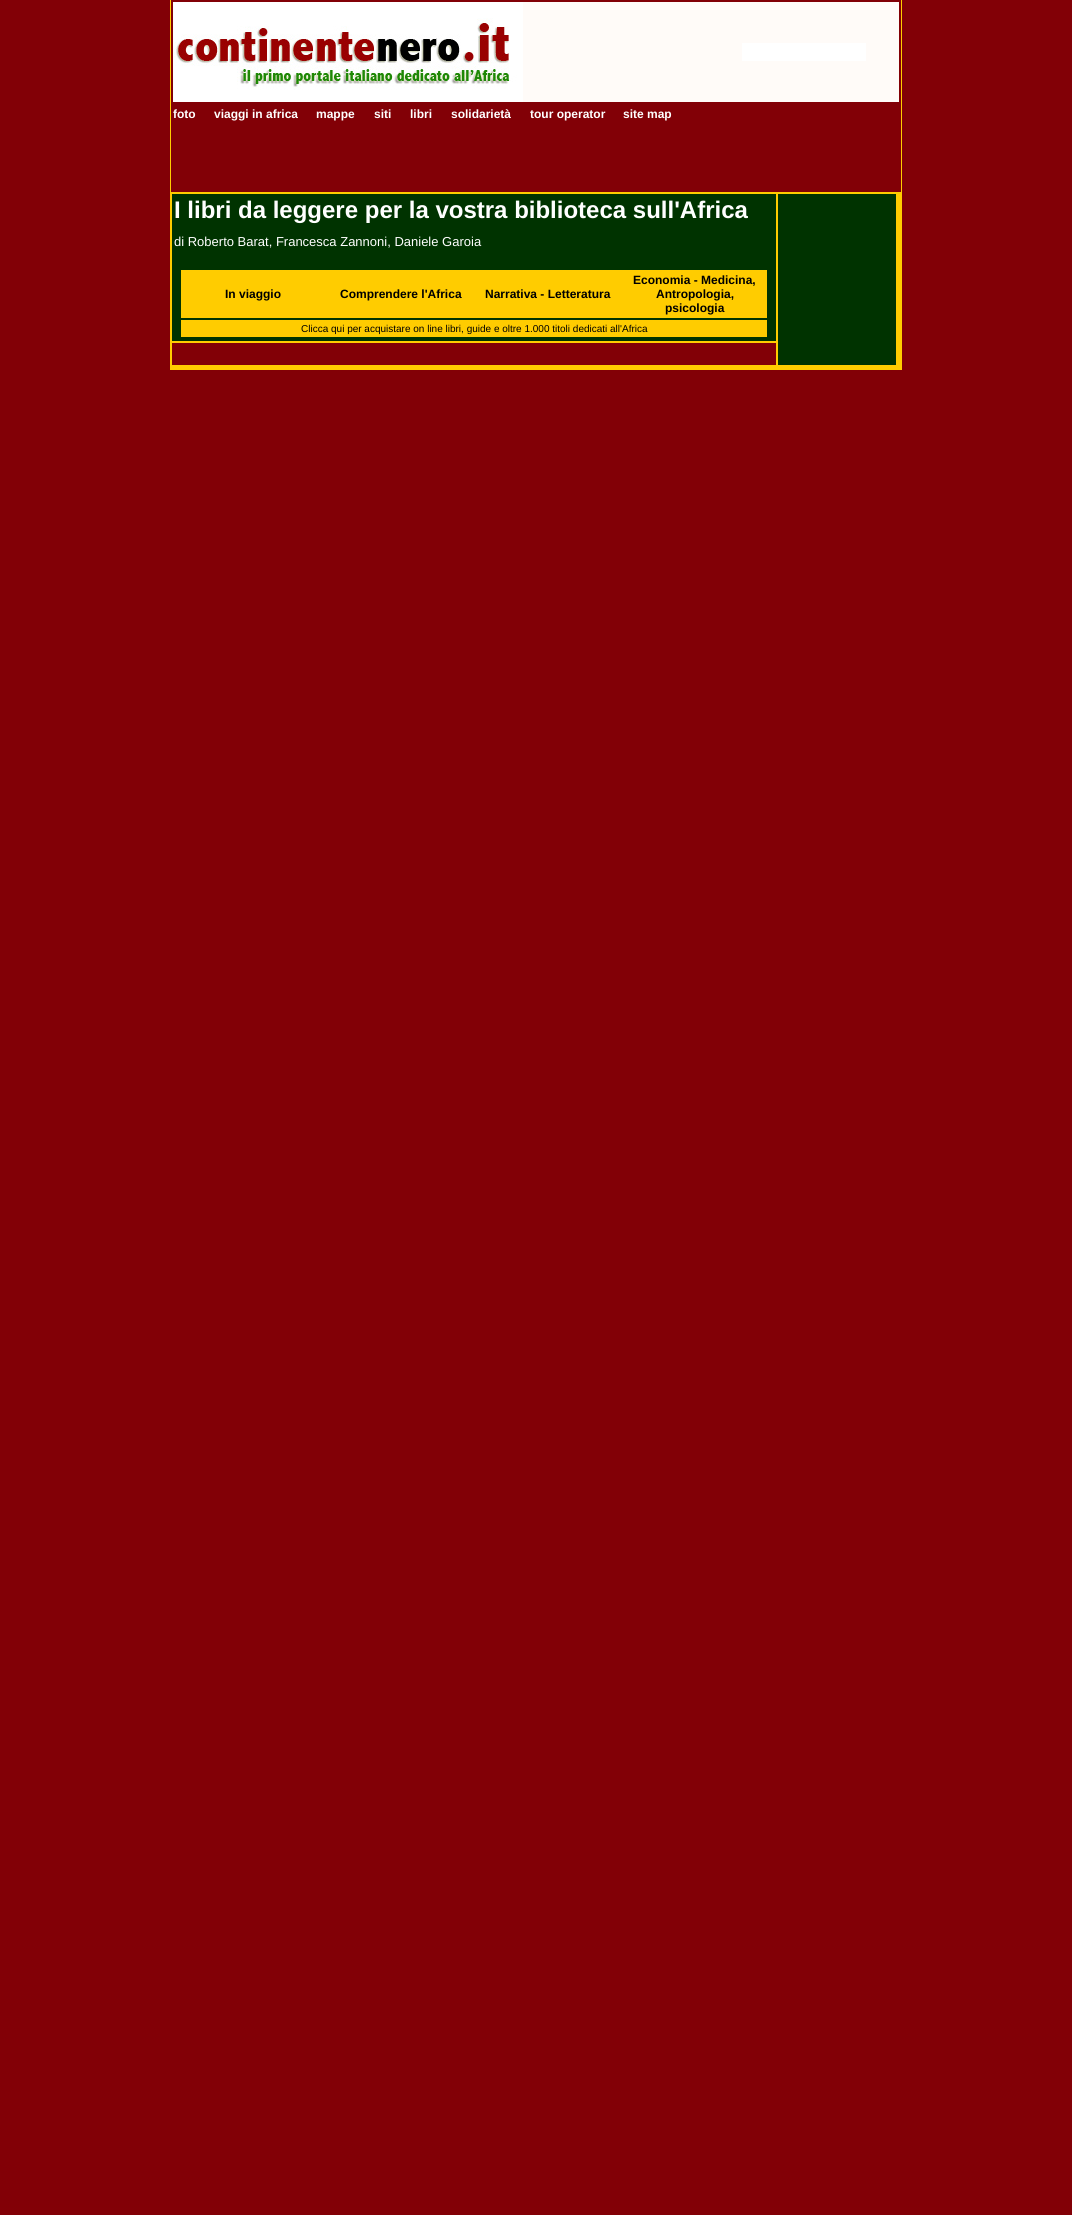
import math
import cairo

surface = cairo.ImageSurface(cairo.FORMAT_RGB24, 1072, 2215)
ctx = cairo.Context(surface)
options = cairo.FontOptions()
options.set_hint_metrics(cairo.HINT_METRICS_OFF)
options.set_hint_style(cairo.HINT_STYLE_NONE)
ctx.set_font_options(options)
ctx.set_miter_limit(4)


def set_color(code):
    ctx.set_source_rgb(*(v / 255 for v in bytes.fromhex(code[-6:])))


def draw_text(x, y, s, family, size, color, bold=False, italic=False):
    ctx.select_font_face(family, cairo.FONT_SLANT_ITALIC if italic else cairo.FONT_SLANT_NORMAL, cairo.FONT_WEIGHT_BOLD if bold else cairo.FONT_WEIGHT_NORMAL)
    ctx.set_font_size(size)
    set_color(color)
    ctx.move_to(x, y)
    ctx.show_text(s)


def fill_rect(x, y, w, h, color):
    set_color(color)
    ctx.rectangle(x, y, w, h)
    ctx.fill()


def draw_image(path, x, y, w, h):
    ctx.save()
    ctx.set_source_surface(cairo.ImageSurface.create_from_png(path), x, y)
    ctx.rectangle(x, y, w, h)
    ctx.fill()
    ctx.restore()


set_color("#820006")
ctx.paint()
fill_rect(170, 0, 732, 370, "#ffcc00")
fill_rect(171, 0, 730, 192, "#820006")
fill_rect(523, 2, 376, 100, "#fffbf8")
draw_image("assets/img1.png", 173, 2, 350, 100)
fill_rect(742, 43, 124, 18, "#ffffff")
draw_text(173, 118, "foto", "Liberation Sans", 12, "#ffffff", bold=True)
draw_text(214, 118, "viaggi in africa", "Liberation Sans", 12, "#ffffff", bold=True)
draw_text(316, 118, "mappe", "Liberation Sans", 12, "#ffffff", bold=True)
draw_text(374, 118, "siti", "Liberation Sans", 12, "#ffffff", bold=True)
draw_text(410, 118, "libri", "Liberation Sans", 12, "#ffffff", bold=True)
draw_text(451, 118, "solidarietà", "Liberation Sans", 12, "#ffffff", bold=True)
draw_text(530, 118, "tour operator", "Liberation Sans", 12, "#ffffff", bold=True)
draw_text(623, 118, "site map", "Liberation Sans", 12, "#ffffff", bold=True)
fill_rect(172, 194, 604, 147, "#003300")
draw_text(174, 218, "I libri da leggere per la vostra biblioteca sull'Africa", "Liberation Sans", 24, "#ffffff", bold=True)
draw_text(174, 246, "di Roberto Barat, Francesca Zannoni, Daniele Garoia", "Liberation Sans", 13, "#ffffff")
fill_rect(181, 270, 586, 48, "#ffcc00")
draw_text(225, 298, "In viaggio", "Liberation Sans", 12, "#000000", bold=True)
draw_text(340, 298, "Comprendere l'Africa", "Liberation Sans", 12, "#000000", bold=True)
draw_text(485, 298, "Narrativa - Letteratura", "Liberation Sans", 12, "#000000", bold=True)
draw_text(633, 284, "Economia - Medicina,", "Liberation Sans", 12, "#000000", bold=True)
draw_text(656, 298, "Antropologia,", "Liberation Sans", 12, "#000000", bold=True)
draw_text(665, 312, "psicologia", "Liberation Sans", 12, "#000000", bold=True)
fill_rect(181, 320, 586, 17, "#ffcc00")
draw_text(301, 332, "Clicca qui per acquistare on line libri, guide e oltre 1.000 titoli dedicati all'Africa", "Liberation Sans", 10, "#000000")
fill_rect(778, 194, 118, 171, "#003300")
fill_rect(172, 343, 604, 22, "#820006")
surface.write_to_png("output.png")
